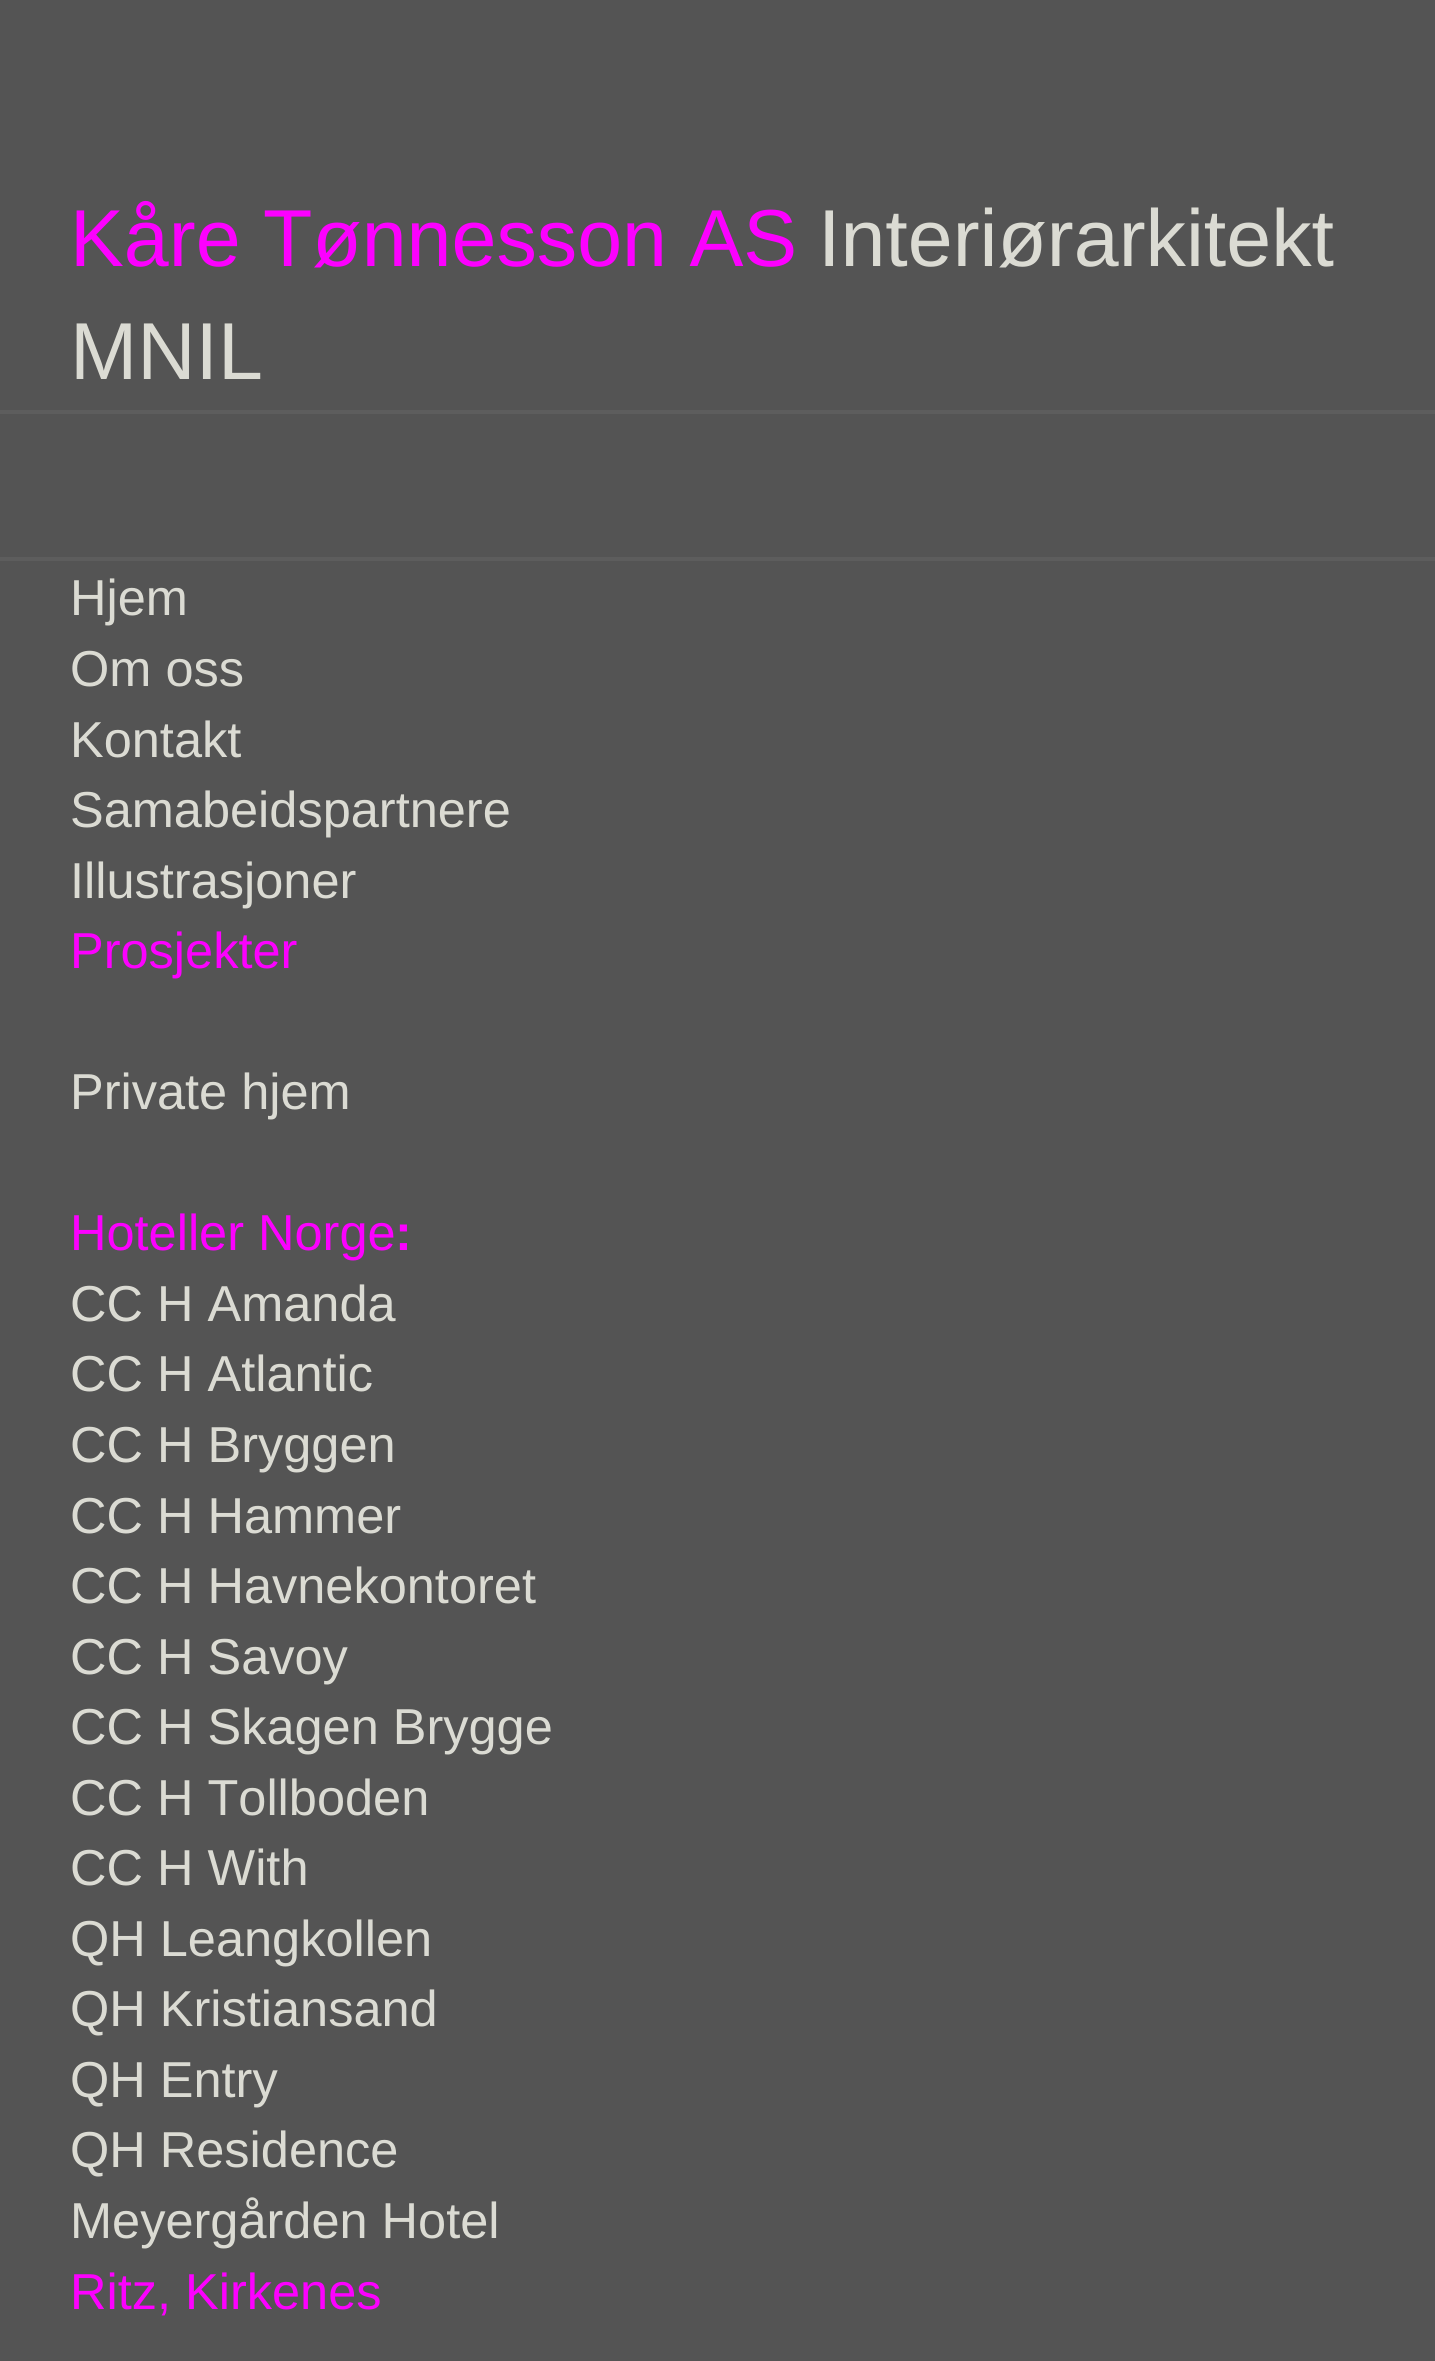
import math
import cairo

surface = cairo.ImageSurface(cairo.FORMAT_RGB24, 1435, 2361)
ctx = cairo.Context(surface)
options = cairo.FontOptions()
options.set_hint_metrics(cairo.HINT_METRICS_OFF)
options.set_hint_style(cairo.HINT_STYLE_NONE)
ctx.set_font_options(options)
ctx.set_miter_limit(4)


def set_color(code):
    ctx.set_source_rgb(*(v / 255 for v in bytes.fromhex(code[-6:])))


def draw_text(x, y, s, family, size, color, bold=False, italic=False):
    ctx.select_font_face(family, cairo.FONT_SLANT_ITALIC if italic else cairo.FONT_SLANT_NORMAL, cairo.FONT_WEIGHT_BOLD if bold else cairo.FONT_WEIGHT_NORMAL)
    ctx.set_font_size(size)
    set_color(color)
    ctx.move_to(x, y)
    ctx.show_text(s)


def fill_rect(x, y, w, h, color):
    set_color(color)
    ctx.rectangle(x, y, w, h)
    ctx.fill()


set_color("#545454")
ctx.paint()
draw_text(70, 266, "Kåre Tønnesson AS", "Liberation Sans", 80.75, "#fc00ff")
draw_text(818, 266, "Interiørarkitekt", "Liberation Sans", 80.75, "#dbdbd3")
draw_text(70, 379, "MNIL", "Liberation Sans", 80.75, "#dbdbd3")
fill_rect(0, 410, 1435, 4, "#5d5d5d")
fill_rect(0, 557, 1435, 4, "#5d5d5d")
draw_text(70, 615, "Hjem", "Liberation Sans", 50.5, "#dbdbd3")
draw_text(70, 686, "Om oss", "Liberation Sans", 50.5, "#dbdbd3")
draw_text(70, 757, "Kontakt", "Liberation Sans", 50.5, "#dbdbd3")
draw_text(70, 827, "Samabeidspartnere", "Liberation Sans", 50.5, "#dbdbd3")
draw_text(70, 898, "Illustrasjoner", "Liberation Sans", 50.5, "#dbdbd3")
draw_text(70, 968, "Prosjekter", "Liberation Sans", 50.5, "#fc00ff")
draw_text(70, 1109, "Private hjem", "Liberation Sans", 50.5, "#dbdbd3")
draw_text(70, 1250, "Hoteller Norge", "Liberation Sans", 50.5, "#fc00ff")
draw_text(395, 1250, ":", "Liberation Sans", 50.5, "#fc00ff", bold=True)
draw_text(70, 1321, "CC H Amanda", "Liberation Sans", 50.5, "#dbdbd3")
draw_text(70, 1391, "CC H Atlantic", "Liberation Sans", 50.5, "#dbdbd3")
draw_text(70, 1462, "CC H Bryggen", "Liberation Sans", 50.5, "#dbdbd3")
draw_text(70, 1533, "CC H Hammer", "Liberation Sans", 50.5, "#dbdbd3")
draw_text(70, 1603, "CC H Havnekontoret", "Liberation Sans", 50.5, "#dbdbd3")
draw_text(70, 1674, "CC H Savoy", "Liberation Sans", 50.5, "#dbdbd3")
draw_text(70, 1744, "CC H Skagen Brygge", "Liberation Sans", 50.5, "#dbdbd3")
draw_text(70, 1815, "CC H Tollboden", "Liberation Sans", 50.5, "#dbdbd3")
draw_text(70, 1885, "CC H With", "Liberation Sans", 50.5, "#dbdbd3")
draw_text(70, 1956, "QH Leangkollen", "Liberation Sans", 50.5, "#dbdbd3")
draw_text(70, 2026, "QH Kristiansand", "Liberation Sans", 50.5, "#dbdbd3")
draw_text(70, 2097, "QH Entry", "Liberation Sans", 50.5, "#dbdbd3")
draw_text(70, 2167, "QH Residence", "Liberation Sans", 50.5, "#dbdbd3")
draw_text(70, 2238, "Meyergården Hotel", "Liberation Sans", 50.5, "#dbdbd3")
draw_text(70, 2309, "Ritz, Kirkenes", "Liberation Sans", 50.5, "#fc00ff")
surface.write_to_png("output.png")
